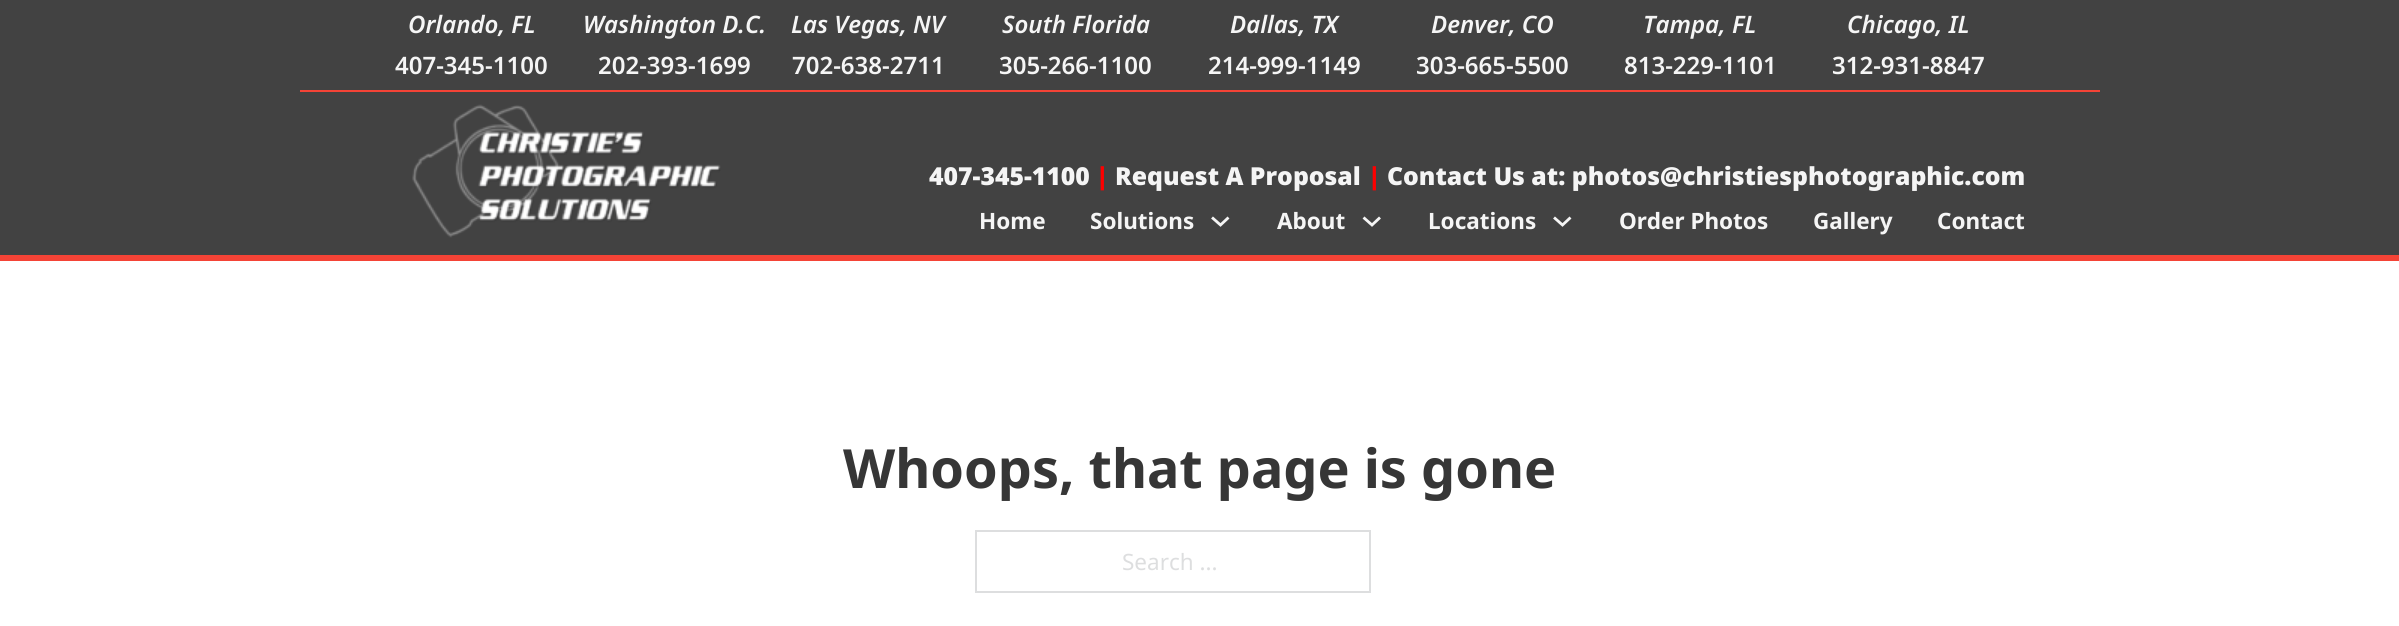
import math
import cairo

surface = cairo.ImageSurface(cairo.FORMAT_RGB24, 2399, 626)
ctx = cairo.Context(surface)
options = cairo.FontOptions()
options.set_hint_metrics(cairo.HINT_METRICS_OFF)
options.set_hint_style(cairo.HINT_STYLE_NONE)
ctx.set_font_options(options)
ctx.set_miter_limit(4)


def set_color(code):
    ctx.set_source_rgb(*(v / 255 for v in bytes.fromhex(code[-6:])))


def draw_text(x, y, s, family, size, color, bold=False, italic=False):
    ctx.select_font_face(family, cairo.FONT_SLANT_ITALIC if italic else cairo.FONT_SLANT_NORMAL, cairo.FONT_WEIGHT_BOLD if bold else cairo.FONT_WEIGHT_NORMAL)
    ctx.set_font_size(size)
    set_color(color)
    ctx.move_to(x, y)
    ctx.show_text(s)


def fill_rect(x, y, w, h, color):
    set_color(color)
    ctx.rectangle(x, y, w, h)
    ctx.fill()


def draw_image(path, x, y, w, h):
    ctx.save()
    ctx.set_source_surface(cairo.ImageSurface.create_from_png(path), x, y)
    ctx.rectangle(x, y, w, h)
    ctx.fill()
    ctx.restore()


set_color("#ffffff")
ctx.paint()
fill_rect(0, 0, 2399, 255, "#424242")
draw_text(408, 33, "Orlando, FL", "Noto Sans SemiBold", 24, "#f5f5f5", italic=True)
draw_text(395, 74, "407-345-1100", "Noto Sans SemiBold", 24, "#f5f5f5")
draw_text(583, 33, "Washington D.C.", "Noto Sans SemiBold", 24, "#f5f5f5", italic=True)
draw_text(598, 74, "202-393-1699", "Noto Sans SemiBold", 24, "#f5f5f5")
draw_text(791, 33, "Las Vegas, NV", "Noto Sans SemiBold", 24, "#f5f5f5", italic=True)
draw_text(792, 74, "702-638-2711", "Noto Sans SemiBold", 24, "#f5f5f5")
draw_text(1002, 33, "South Florida", "Noto Sans SemiBold", 24, "#f5f5f5", italic=True)
draw_text(999, 74, "305-266-1100", "Noto Sans SemiBold", 24, "#f5f5f5")
draw_text(1230, 33, "Dallas, TX", "Noto Sans SemiBold", 24, "#f5f5f5", italic=True)
draw_text(1208, 74, "214-999-1149", "Noto Sans SemiBold", 24, "#f5f5f5")
draw_text(1431, 33, "Denver, CO", "Noto Sans SemiBold", 24, "#f5f5f5", italic=True)
draw_text(1416, 74, "303-665-5500", "Noto Sans SemiBold", 24, "#f5f5f5")
draw_text(1643, 33, "Tampa, FL", "Noto Sans SemiBold", 24, "#f5f5f5", italic=True)
draw_text(1624, 74, "813-229-1101", "Noto Sans SemiBold", 24, "#f5f5f5")
draw_text(1847, 33, "Chicago, IL", "Noto Sans SemiBold", 24, "#f5f5f5", italic=True)
draw_text(1832, 74, "312-931-8847", "Noto Sans SemiBold", 24, "#f5f5f5")
fill_rect(300, 90, 1800, 2, "#f44336")
draw_image("assets/img1.png", 412, 104, 309, 134)
draw_text(929, 185, "407-345-1100", "Noto Sans Black", 24.75, "#f5f5f5")
draw_text(1096, 185, "|", "Noto Sans Black", 24.75, "#ff0000")
draw_text(1115, 185, "Request A Proposal", "Noto Sans Black", 24.75, "#f5f5f5")
draw_text(1368, 185, "|", "Noto Sans Black", 24.75, "#ff0000")
draw_text(1387, 185, "Contact Us at: photos@christiesphotographic.com", "Noto Sans Black", 24.75, "#f5f5f5")
draw_text(979, 229, "Home", "Noto Sans", 22.5, "#f5f5f5", bold=True)
draw_text(1090, 229, "Solutions", "Noto Sans", 22.5, "#f5f5f5", bold=True)
ctx.new_path()
ctx.move_to(1212, 217.5)
ctx.line_to(1220.5, 225)
ctx.line_to(1228.5, 217.5)
ctx.set_line_width(2.8)
ctx.stroke()
draw_text(1277, 229, "About", "Noto Sans", 22.5, "#f5f5f5", bold=True)
ctx.new_path()
ctx.move_to(1363.5, 217.5)
ctx.line_to(1372, 225)
ctx.line_to(1380, 217.5)
ctx.stroke()
draw_text(1428, 229, "Locations", "Noto Sans", 22.5, "#f5f5f5", bold=True)
ctx.new_path()
ctx.move_to(1554, 217.5)
ctx.line_to(1562.5, 225)
ctx.line_to(1570.5, 217.5)
ctx.stroke()
draw_text(1619, 229, "Order Photos", "Noto Sans", 22.5, "#f5f5f5", bold=True)
draw_text(1813, 229, "Gallery", "Noto Sans", 22.5, "#f5f5f5", bold=True)
draw_text(1937, 229, "Contact", "Noto Sans", 22.5, "#f5f5f5", bold=True)
fill_rect(0, 255, 2399, 6, "#f44336")
draw_text(843, 488, "Whoops, that page is gone", "Noto Sans", 54, "#363636", bold=True)
ctx.rectangle(976, 531, 394, 61)
set_color("#dddedf")
ctx.set_line_width(2)
ctx.stroke()
draw_text(1122, 570, "Search ...", "Noto Sans", 22.5, "#dddedf")
surface.write_to_png("output.png")
